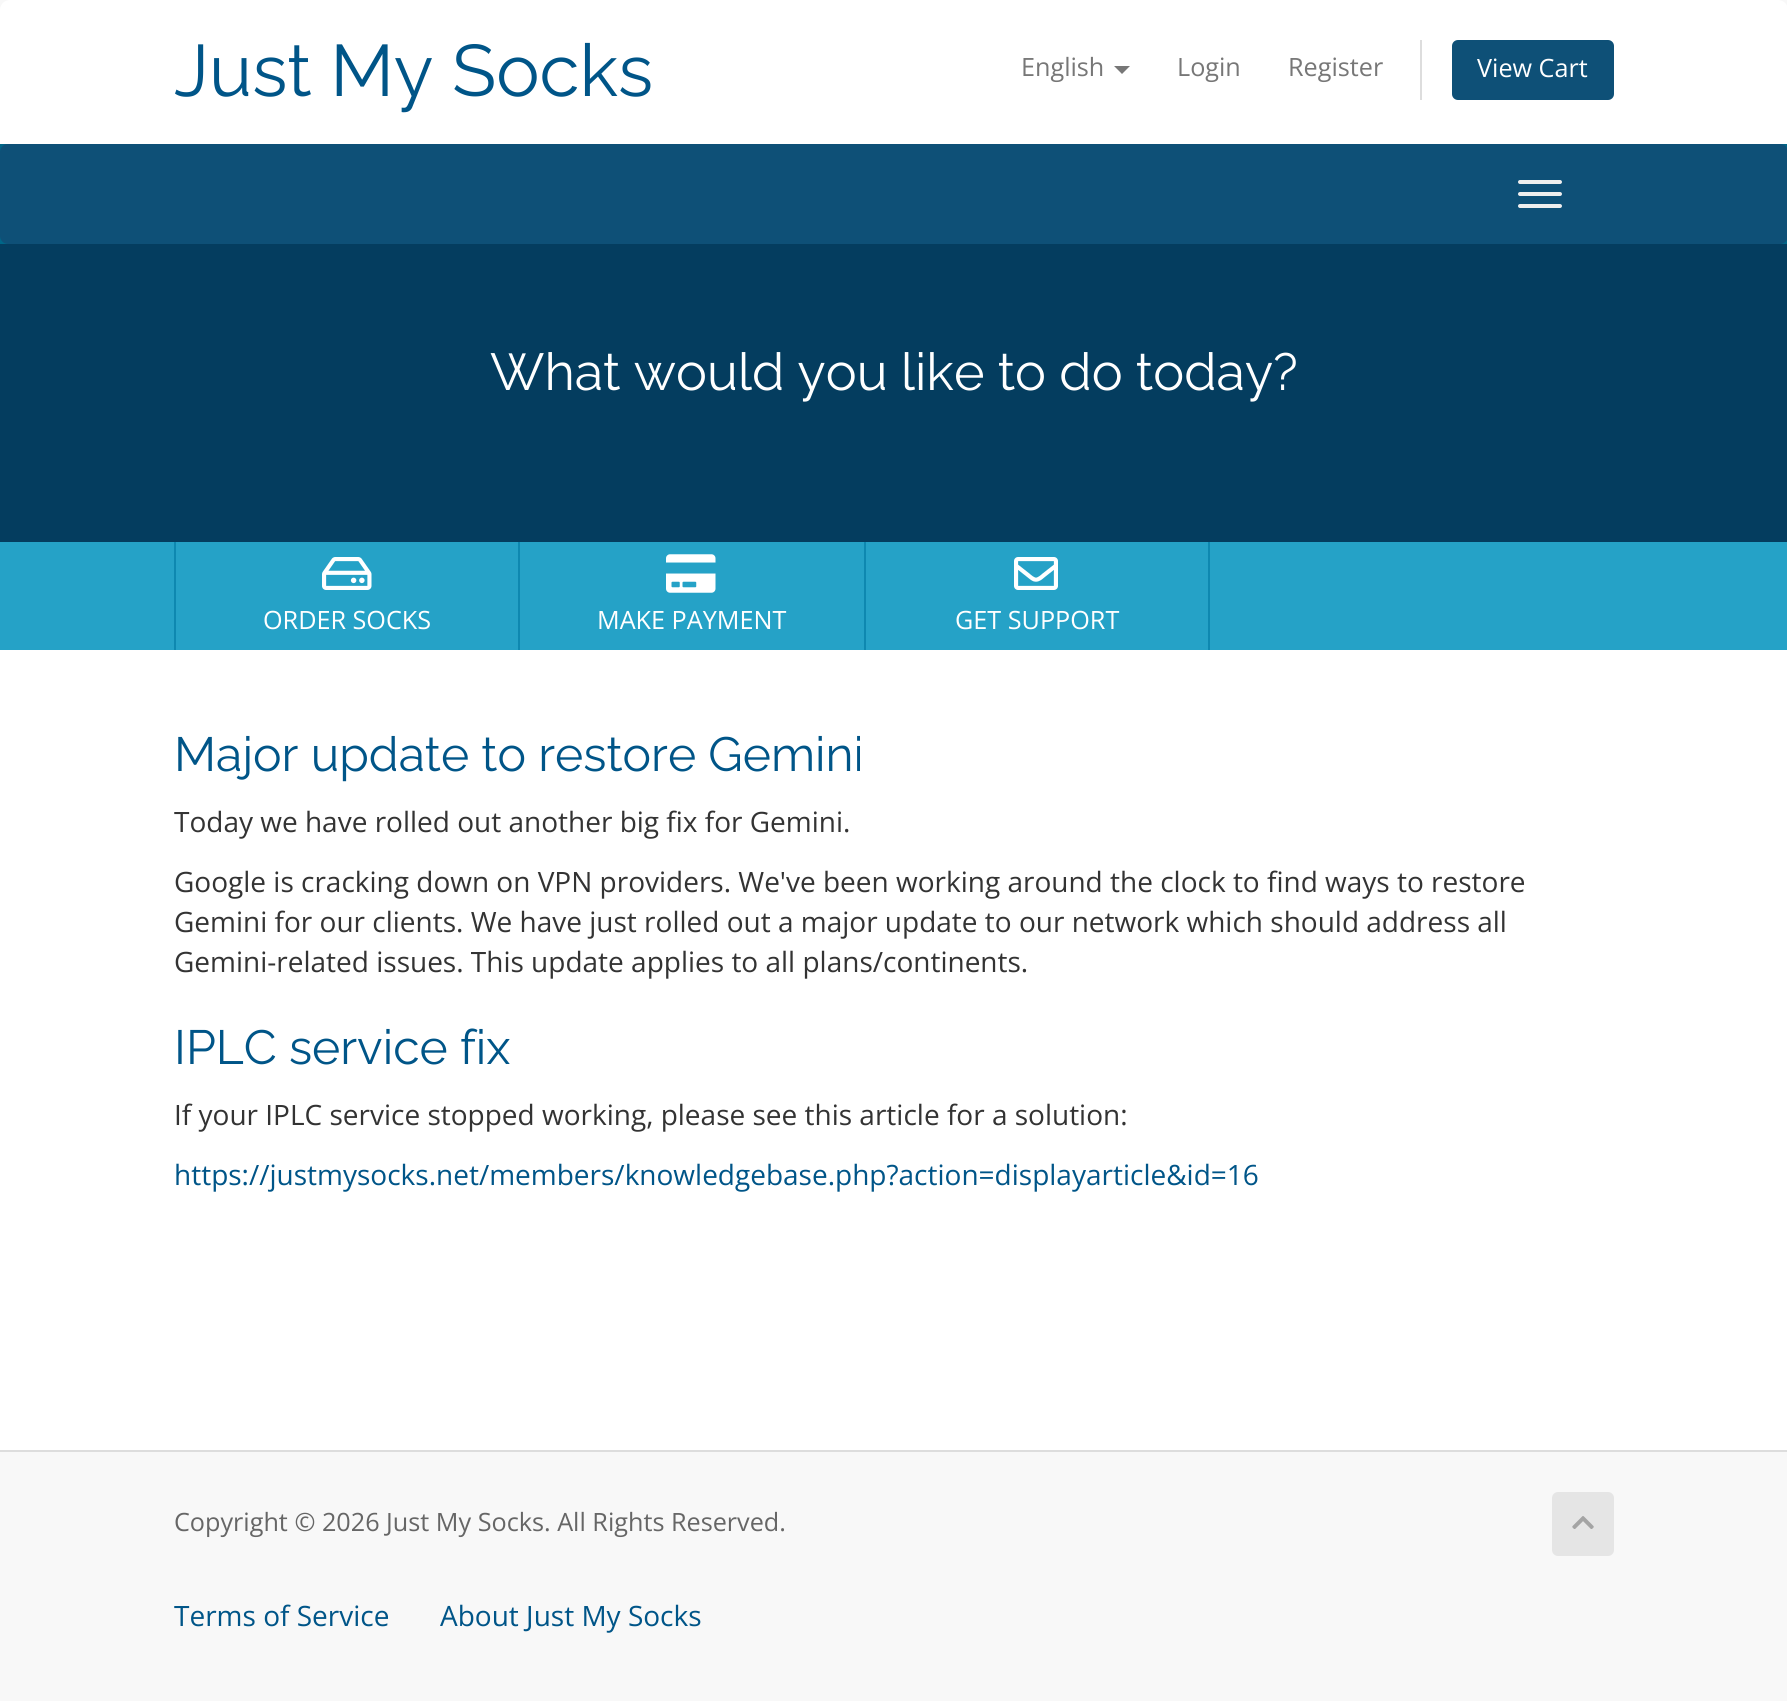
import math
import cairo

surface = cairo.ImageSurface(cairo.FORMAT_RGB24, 1787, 1701)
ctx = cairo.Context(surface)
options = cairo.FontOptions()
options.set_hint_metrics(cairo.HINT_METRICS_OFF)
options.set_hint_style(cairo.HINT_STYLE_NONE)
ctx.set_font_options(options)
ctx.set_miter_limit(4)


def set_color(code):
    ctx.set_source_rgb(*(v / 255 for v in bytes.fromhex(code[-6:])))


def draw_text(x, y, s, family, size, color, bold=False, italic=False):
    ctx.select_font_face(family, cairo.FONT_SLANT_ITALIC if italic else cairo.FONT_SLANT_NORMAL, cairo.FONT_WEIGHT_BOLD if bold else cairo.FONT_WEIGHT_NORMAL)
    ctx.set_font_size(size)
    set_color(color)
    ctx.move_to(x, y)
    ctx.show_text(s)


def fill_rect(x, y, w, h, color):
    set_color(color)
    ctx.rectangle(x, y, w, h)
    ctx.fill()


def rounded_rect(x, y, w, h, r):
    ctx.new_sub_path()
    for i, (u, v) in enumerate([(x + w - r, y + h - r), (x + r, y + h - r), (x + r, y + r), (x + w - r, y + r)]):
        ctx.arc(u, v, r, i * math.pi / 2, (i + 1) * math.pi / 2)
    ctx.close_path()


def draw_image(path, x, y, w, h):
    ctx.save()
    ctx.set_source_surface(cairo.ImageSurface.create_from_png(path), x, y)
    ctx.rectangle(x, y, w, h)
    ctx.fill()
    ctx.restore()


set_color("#f8f8f8")
ctx.paint()
set_color("#ffffff")
ctx.new_path()
ctx.move_to(10, 0)
ctx.line_to(1778, 0)
ctx.curve_to(1783.5, 0, 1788, 4.5, 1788, 10)
ctx.line_to(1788, 144)
ctx.line_to(0, 144)
ctx.line_to(0, 10)
ctx.curve_to(0, 4.5, 4.5, 0, 10, 0)
ctx.close_path()
ctx.fill()
draw_text(174, 96, "Just My Socks", "Raleway", 72.75, "#005588")
draw_text(1021, 76, "English", "Open Sans", 25.2, "#777777")
ctx.new_path()
ctx.move_to(1114, 66)
ctx.line_to(1130, 66)
ctx.line_to(1122, 74)
ctx.close_path()
ctx.fill()
draw_text(1177, 76, "Login", "Open Sans", 25.2, "#777777")
draw_text(1288, 76, "Register", "Open Sans", 25.2, "#777777")
fill_rect(1420, 40, 2, 60, "#dddddd")
set_color("#0e5077")
rounded_rect(1452, 40, 162, 60, 6)
ctx.fill()
draw_text(1477, 77, "View Cart", "Open Sans", 25.2, "#ffffff")
fill_rect(0, 144, 1787, 100, "#006687")
set_color("#0e5077")
rounded_rect(0, 144, 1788, 100, 8)
ctx.fill()
set_color("#eeeeee")
rounded_rect(1518, 180, 44, 4, 2)
ctx.fill()
rounded_rect(1518, 192, 44, 4, 2)
ctx.fill()
rounded_rect(1518, 204, 44, 4, 2)
ctx.fill()
fill_rect(0, 244, 1787, 298, "#043d5f")
draw_text(490, 390, "What would you like to do today?", "Raleway", 52, "#ffffff")
fill_rect(0, 542, 1787, 108, "#25a2c7")
fill_rect(518, 542, 2, 108, "#0e88b0")
fill_rect(174, 542, 2, 108, "#0e88b0")
draw_image("assets/img1.png", 322, 557, 50, 33)
draw_text(263, 629, "ORDER SOCKS", "Open Sans", 25.2, "#ffffff")
fill_rect(864, 542, 2, 108, "#0e88b0")
draw_image("assets/img2.png", 666, 554, 50, 39)
draw_text(597, 629, "MAKE PAYMENT", "Open Sans", 25.2, "#ffffff")
fill_rect(1208, 542, 2, 108, "#0e88b0")
draw_image("assets/img3.png", 1014, 557, 44, 33)
draw_text(955, 629, "GET SUPPORT", "Open Sans", 25.2, "#ffffff")
fill_rect(0, 650, 1787, 800, "#ffffff")
draw_text(174, 771, "Major update to restore Gemini", "Raleway", 48, "#005588")
draw_text(174, 832, "Today we have rolled out another big fix for Gemini.", "Open Sans", 28, "#333333")
draw_text(174, 892, "Google is cracking down on VPN providers. We've been working around the clock to find ways to restore", "Open Sans", 28, "#333333")
draw_text(174, 932, "Gemini for our clients. We have just rolled out a major update to our network which should address all", "Open Sans", 28, "#333333")
draw_text(174, 972, "Gemini-related issues. This update applies to all plans/continents.", "Open Sans", 28, "#333333")
draw_text(174, 1064, "IPLC service fix", "Raleway", 48, "#005588")
draw_text(174, 1125, "If your IPLC service stopped working, please see this article for a solution:", "Open Sans", 28, "#333333")
draw_text(174, 1185, "https://justmysocks.net/members/knowledgebase.php?action=displayarticle&id=16", "Open Sans", 28, "#005588")
fill_rect(0, 1450, 1787, 2, "#dddddd")
draw_text(174, 1531, "Copyright © 2026 Just My Socks. All Rights Reserved.", "Open Sans", 25.2, "#666666")
set_color("#e5e5e5")
rounded_rect(1552, 1492, 62, 64, 6)
ctx.fill()
draw_image("assets/img4.png", 1572, 1516, 22, 13)
draw_text(174, 1626, "Terms of Service", "Open Sans", 28, "#005588")
draw_text(440, 1626, "About Just My Socks", "Open Sans", 28, "#005588")
surface.write_to_png("output.png")
